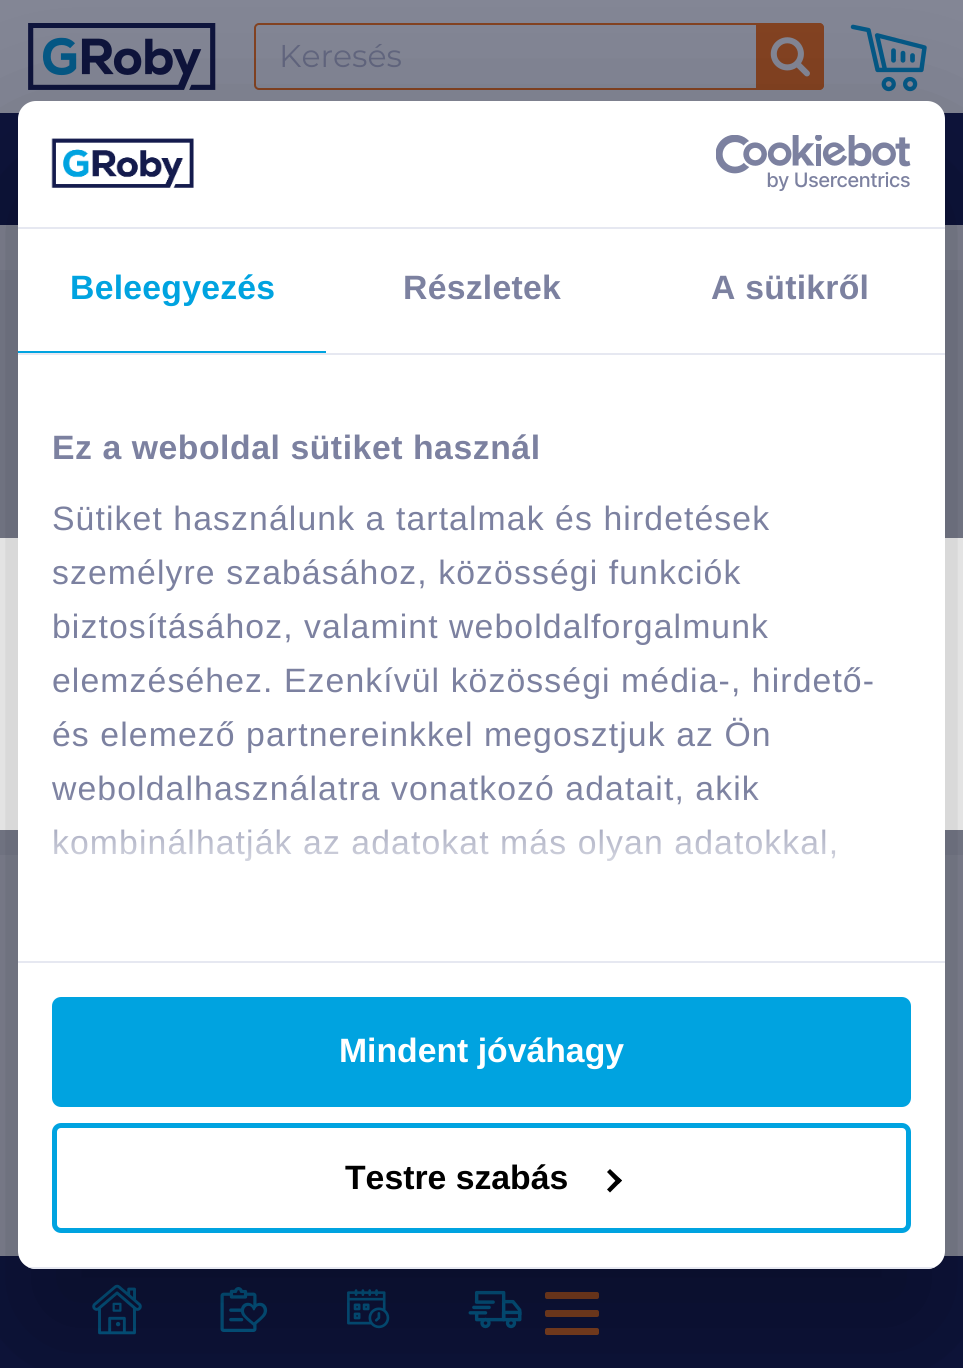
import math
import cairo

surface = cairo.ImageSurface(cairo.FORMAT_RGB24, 963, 1368)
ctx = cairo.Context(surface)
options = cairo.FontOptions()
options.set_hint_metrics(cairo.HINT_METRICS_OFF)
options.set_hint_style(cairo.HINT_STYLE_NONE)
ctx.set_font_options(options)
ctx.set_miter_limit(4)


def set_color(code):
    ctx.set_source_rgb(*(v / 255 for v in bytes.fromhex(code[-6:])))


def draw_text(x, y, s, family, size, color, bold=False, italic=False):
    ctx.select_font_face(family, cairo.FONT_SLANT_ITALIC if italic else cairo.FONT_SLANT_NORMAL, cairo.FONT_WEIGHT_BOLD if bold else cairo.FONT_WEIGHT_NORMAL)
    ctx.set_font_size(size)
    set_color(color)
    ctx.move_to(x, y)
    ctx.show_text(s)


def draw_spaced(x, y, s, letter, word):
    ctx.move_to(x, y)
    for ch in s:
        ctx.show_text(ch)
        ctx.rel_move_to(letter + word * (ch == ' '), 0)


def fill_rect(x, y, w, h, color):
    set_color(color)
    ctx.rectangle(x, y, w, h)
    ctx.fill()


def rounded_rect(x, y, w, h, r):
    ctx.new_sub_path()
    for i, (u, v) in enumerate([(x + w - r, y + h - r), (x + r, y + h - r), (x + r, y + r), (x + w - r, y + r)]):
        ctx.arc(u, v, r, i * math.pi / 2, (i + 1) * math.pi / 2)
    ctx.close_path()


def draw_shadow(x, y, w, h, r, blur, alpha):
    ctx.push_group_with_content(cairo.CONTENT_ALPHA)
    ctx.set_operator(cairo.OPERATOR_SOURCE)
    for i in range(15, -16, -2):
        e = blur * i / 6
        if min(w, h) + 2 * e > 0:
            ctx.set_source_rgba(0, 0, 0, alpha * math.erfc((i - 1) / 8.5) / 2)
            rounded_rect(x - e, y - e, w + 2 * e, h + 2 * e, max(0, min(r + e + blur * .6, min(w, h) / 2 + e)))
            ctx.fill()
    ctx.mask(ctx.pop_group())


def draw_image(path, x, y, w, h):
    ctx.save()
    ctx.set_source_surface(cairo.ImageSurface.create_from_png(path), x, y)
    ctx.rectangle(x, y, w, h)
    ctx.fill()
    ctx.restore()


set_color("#838695")
ctx.paint()
draw_image("assets/img1.png", 28, 23, 188, 67)
rounded_rect(255, 24, 568, 65, 4)
set_color("#834221")
ctx.stroke()
draw_text(279, 67, "Keresés", "Montserrat", 31.5, "#62667f")
set_color("#834221")
ctx.new_path()
ctx.move_to(756, 23)
ctx.line_to(819, 23)
ctx.curve_to(822, 23, 824, 25, 824, 28)
ctx.line_to(824, 85)
ctx.curve_to(824, 88, 822, 90, 819, 90)
ctx.line_to(756, 90)
ctx.close_path()
ctx.fill()
draw_image("assets/img2.png", 770, 37, 40, 40)
draw_image("assets/img3.png", 850, 24, 77, 68)
fill_rect(0, 113, 963, 112, "#0e143c")
fill_rect(0, 1256, 963, 112, "#0e143c")
draw_image("assets/img4.png", 92, 1284, 50, 51)
draw_image("assets/img5.png", 220, 1287, 48, 45)
draw_image("assets/img6.png", 347, 1289, 43, 40)
draw_image("assets/img7.png", 468, 1290, 54, 39)
set_color("#834221")
rounded_rect(545, 1292, 54, 7, 2)
ctx.fill()
rounded_rect(545, 1310, 54, 7, 2)
ctx.fill()
rounded_rect(545, 1328, 54, 7, 2)
ctx.fill()
fill_rect(0, 270, 963, 585, "#7d8090")
fill_rect(0, 538, 963, 292, "#ffffff")
set_color("#000000")
draw_shadow(18, 173, 927, 1168, 18, 76.5, 0.3)
set_color("#ffffff")
rounded_rect(18, 101, 927, 1168, 18)
ctx.fill()
fill_rect(18, 227, 927, 2, "#e6e8f1")
draw_image("assets/img8.png", 51, 138, 143, 50)
draw_image("assets/img9.png", 716, 135, 195, 57)
fill_rect(18, 353, 927, 2, "#e6e8f1")
fill_rect(18, 351, 308, 2, "#00a3e0")
ctx.select_font_face("Liberation Sans", cairo.FONT_SLANT_NORMAL, cairo.FONT_WEIGHT_BOLD)
ctx.set_font_size(33.75)
draw_spaced(70, 299, "Beleegyezés", 0.25, 0)
set_color("#7c81a0")
draw_spaced(403, 299, "Részletek", 0.25, 0)
draw_spaced(711, 299, "A sütikről", 0.25, 0)
fill_rect(18, 961, 927, 2, "#e6e8f1")
set_color("#7c81a0")
draw_spaced(52, 459, "Ez a weboldal sütiket használ", 0.55, 0)
ctx.select_font_face("Liberation Sans")
draw_spaced(52, 530, "Sütiket használunk a tartalmak és hirdetések", 1.1, 0)
draw_spaced(52, 584, "személyre szabásához, közösségi funkciók", 1.1, 0)
draw_spaced(52, 638, "biztosításához, valamint weboldalforgalmunk", 1.1, 0)
draw_spaced(52, 692, "elemzéséhez. Ezenkívül közösségi média-, hirdető-", 1.1, 0)
draw_spaced(52, 746, "és elemező partnereinkkel megosztjuk az Ön", 1.1, 0)
draw_spaced(52, 800, "weboldalhasználatra vonatkozó adatait, akik", 1.1, 0)
draw_spaced(52, 854, "kombinálhatják az adatokat más olyan adatokkal,", 1.1, 0)
gradient = cairo.LinearGradient(467, 960, 467, 791)
gradient.add_color_stop_rgba(0, 1, 1, 1, 1)
gradient.add_color_stop_rgba(0.5, 1, 1, 1, 0.8)
gradient.add_color_stop_rgba(1, 1, 1, 1, 0)
ctx.set_source(gradient)
ctx.rectangle(54, 793, 782, 68)
ctx.fill()
ctx.save()
rounded_rect(18, 101, 927, 1168, 18)
ctx.clip()
fill_rect(28, 1267, 907, 2, "#e6e8f1")
ctx.restore()
set_color("#00a3e0")
rounded_rect(54.5, 999.5, 854, 105, 6.5)
ctx.fill_preserve()
ctx.set_line_width(5)
ctx.stroke()
draw_text(339, 1062, "Mindent jóváhagy", "Liberation Sans", 33.75, "#ffffff", bold=True)
rounded_rect(54.5, 1125.5, 854, 105, 6.5)
set_color("#00a3e0")
ctx.stroke()
draw_text(345, 1189, "Testre szabás", "Liberation Sans", 33.75, "#000000", bold=True)
ctx.new_path()
ctx.move_to(610, 1169)
ctx.line_to(622, 1180.5)
ctx.line_to(618.5, 1184)
ctx.line_to(607, 1172)
ctx.close_path()
ctx.fill()
ctx.new_path()
ctx.move_to(618.5, 1177.5)
ctx.line_to(622, 1180.5)
ctx.line_to(610, 1192.5)
ctx.line_to(607, 1189.5)
ctx.close_path()
ctx.fill()
surface.write_to_png("output.png")
